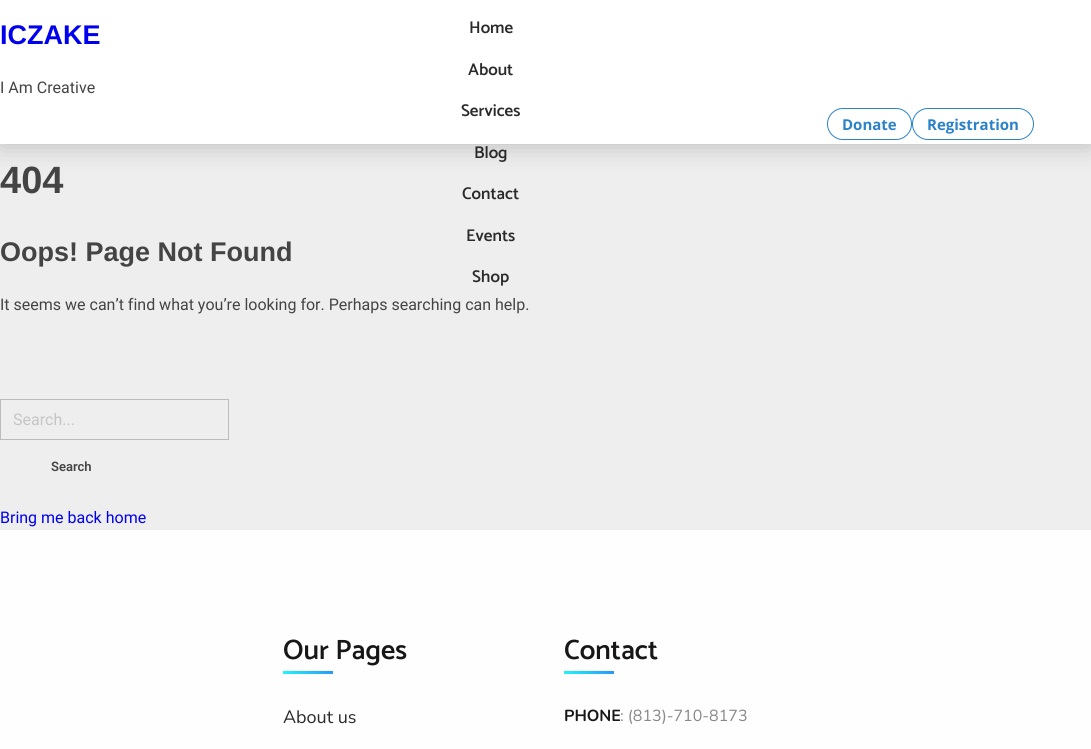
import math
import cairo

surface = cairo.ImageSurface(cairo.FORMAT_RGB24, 1091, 749)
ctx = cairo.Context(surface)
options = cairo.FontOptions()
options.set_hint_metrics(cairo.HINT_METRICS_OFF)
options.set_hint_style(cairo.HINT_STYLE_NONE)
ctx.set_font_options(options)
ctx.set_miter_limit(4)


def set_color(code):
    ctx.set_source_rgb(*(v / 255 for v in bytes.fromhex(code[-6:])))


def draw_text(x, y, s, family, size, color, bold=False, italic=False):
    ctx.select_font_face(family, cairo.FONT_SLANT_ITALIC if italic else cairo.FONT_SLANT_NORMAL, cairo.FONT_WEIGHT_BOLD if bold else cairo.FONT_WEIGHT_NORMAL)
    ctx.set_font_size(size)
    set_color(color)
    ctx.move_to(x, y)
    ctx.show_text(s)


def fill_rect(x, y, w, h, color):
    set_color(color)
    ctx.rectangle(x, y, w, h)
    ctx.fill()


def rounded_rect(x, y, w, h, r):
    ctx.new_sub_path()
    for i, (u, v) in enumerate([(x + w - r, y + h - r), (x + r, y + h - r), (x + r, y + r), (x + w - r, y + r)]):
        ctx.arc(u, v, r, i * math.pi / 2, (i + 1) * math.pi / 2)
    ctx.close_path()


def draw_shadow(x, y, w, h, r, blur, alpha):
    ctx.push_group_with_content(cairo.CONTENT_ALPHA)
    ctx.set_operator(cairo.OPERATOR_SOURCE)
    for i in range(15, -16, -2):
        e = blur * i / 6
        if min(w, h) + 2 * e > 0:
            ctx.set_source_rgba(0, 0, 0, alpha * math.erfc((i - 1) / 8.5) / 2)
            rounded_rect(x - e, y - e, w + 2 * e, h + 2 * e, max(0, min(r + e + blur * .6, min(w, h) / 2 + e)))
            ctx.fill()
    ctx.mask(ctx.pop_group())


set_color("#eeeeee")
ctx.paint()
set_color("#000000")
draw_shadow(0, 3, 1091, 144, 0, 12.5, 0.2)
fill_rect(0, 0, 1091, 144, "#ffffff")
draw_text(0, 44, "ICZAKE", "Liberation Sans", 27, "#0000ee", bold=True)
draw_text(0, 93, "I Am Creative", "Roboto", 16, "#444444")
draw_text(469, 33, "Home", "Catamaran SemiBold", 17, "#2a2a2a")
draw_text(468, 75, "About", "Catamaran SemiBold", 17, "#2a2a2a")
draw_text(461, 116, "Services", "Catamaran SemiBold", 17, "#2a2a2a")
draw_text(474, 158, "Blog", "Catamaran SemiBold", 17, "#2a2a2a")
draw_text(462, 199, "Contact", "Catamaran SemiBold", 17, "#2a2a2a")
draw_text(466, 241, "Events", "Catamaran SemiBold", 17, "#2a2a2a")
draw_text(472, 282, "Shop", "Catamaran SemiBold", 17, "#2a2a2a")
rounded_rect(827.5, 108.5, 84, 31, 15.5)
set_color("#2c82c9")
ctx.set_line_width(1)
ctx.stroke()
draw_text(842, 130, "Donate", "Open Sans", 15, "#2c82c9", bold=True)
rounded_rect(912.5, 108.5, 121, 31, 15.5)
ctx.stroke()
draw_text(927, 130, "Registration", "Open Sans", 15, "#2c82c9", bold=True)
draw_text(0, 193, "404", "Liberation Sans", 38, "#444444", bold=True)
draw_text(0, 261, "Oops! Page Not Found", "Liberation Sans", 27, "#444444", bold=True)
draw_text(0, 310, "It seems we can’t find what you’re looking for. Perhaps searching can help.", "Roboto", 16, "#444444")
ctx.rectangle(0.5, 399.5, 228, 40)
set_color("#bbbbbb")
ctx.stroke()
draw_text(13, 425, "Search...", "Roboto", 16, "#c5c5c5")
draw_text(51, 471, "Search", "Roboto SemiBold", 13, "#444444")
draw_text(0, 523, "Bring me back home", "Roboto", 16, "#0000ee")
fill_rect(0, 530, 1091, 219, "#fefefe")
draw_text(283, 659, "Our Pages", "Catamaran SemiBold", 28, "#171717")
gradient = cairo.LinearGradient(318, 660, 298, 685)
gradient.add_color_stop_rgba(0, 0.149, 0.592, 0.973, 1)
gradient.add_color_stop_rgba(1, 0.129, 0.961, 1, 1)
ctx.set_source(gradient)
ctx.rectangle(283, 671, 50, 3)
ctx.fill()
draw_text(283, 723, "About us", "Nunito", 18, "#2a2a2a")
draw_text(564, 659, "Contact", "Catamaran SemiBold", 28, "#171717")
gradient = cairo.LinearGradient(599, 660, 579, 685)
gradient.add_color_stop_rgba(0, 0.149, 0.592, 0.973, 1)
gradient.add_color_stop_rgba(1, 0.129, 0.961, 1, 1)
ctx.set_source(gradient)
ctx.rectangle(564, 671, 50, 3)
ctx.fill()
draw_text(564, 721, "PHONE", "Nunito", 16, "#171717", bold=True)
draw_text(620, 721, ": (813)-710-8173", "Nunito", 16, "#888888")
surface.write_to_png("output.png")
